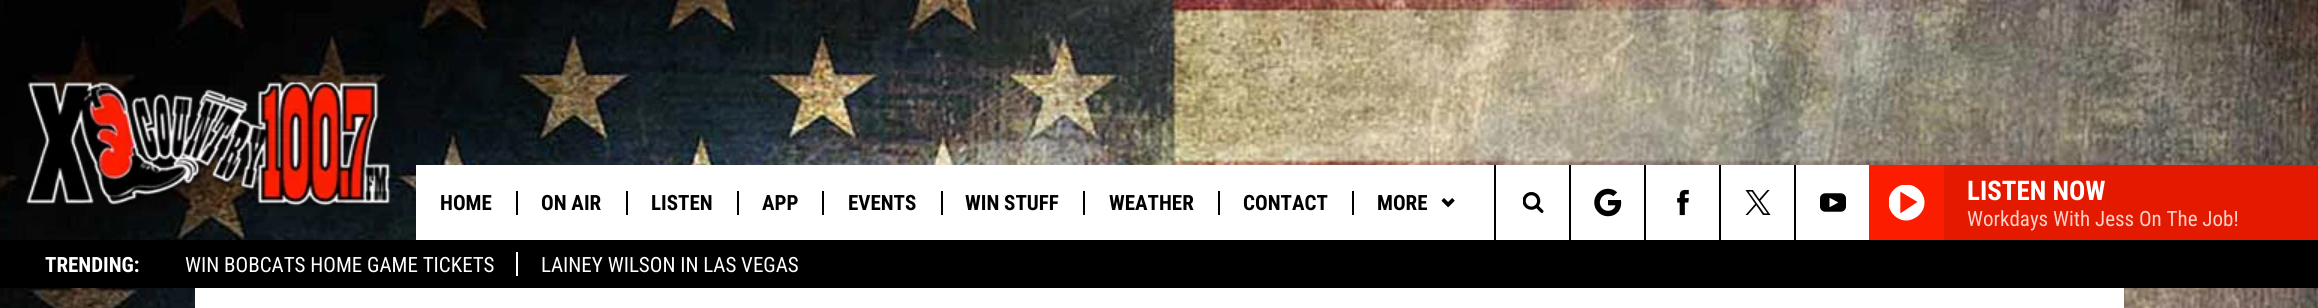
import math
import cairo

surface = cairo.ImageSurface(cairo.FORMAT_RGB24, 2318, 308)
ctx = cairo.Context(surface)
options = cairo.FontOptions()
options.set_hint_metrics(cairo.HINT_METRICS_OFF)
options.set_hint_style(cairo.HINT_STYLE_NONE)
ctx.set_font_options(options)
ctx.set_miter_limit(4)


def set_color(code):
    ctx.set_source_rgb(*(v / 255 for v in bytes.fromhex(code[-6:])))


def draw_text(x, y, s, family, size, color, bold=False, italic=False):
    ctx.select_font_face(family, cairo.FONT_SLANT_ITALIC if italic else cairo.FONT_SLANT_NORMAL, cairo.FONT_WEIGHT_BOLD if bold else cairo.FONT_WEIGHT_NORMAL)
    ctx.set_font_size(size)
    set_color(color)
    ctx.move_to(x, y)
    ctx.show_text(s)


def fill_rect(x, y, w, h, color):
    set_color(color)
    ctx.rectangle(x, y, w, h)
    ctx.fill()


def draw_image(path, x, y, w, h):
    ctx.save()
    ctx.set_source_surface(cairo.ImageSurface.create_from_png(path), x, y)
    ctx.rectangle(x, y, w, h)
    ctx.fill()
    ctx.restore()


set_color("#ffffff")
ctx.paint()
draw_image("assets/img1.png", 0, 288, 2318, 20)
draw_image("assets/img2.png", 0, 0, 2318, 240)
draw_image("assets/img3.png", 25, 82, 366, 124)
fill_rect(416, 165, 1453, 75, "#ffffff")
draw_text(440, 210, "HOME", "Roboto Condensed", 21, "#000000", bold=True)
fill_rect(516, 191, 2, 24, "#000000")
draw_text(541, 210, "ON AIR", "Roboto Condensed", 21, "#000000", bold=True)
fill_rect(626, 191, 2, 24, "#000000")
draw_text(651, 210, "LISTEN", "Roboto Condensed", 21, "#000000", bold=True)
fill_rect(737, 191, 2, 24, "#000000")
draw_text(762, 210, "APP", "Roboto Condensed", 21, "#000000", bold=True)
fill_rect(822, 191, 2, 24, "#000000")
draw_text(848, 210, "EVENTS", "Roboto Condensed", 21, "#000000", bold=True)
fill_rect(941, 191, 2, 24, "#000000")
draw_text(965, 210, "WIN STUFF", "Roboto Condensed", 21, "#000000", bold=True)
fill_rect(1083, 191, 2, 24, "#000000")
draw_text(1109, 210, "WEATHER", "Roboto Condensed", 21, "#000000", bold=True)
fill_rect(1218, 191, 2, 24, "#000000")
draw_text(1243, 210, "CONTACT", "Roboto Condensed", 21, "#000000", bold=True)
fill_rect(1352, 191, 2, 24, "#000000")
draw_text(1377, 210, "MORE", "Roboto Condensed", 21, "#000000", bold=True)
draw_image("assets/img4.png", 1441, 198, 14, 10)
fill_rect(1494, 165, 2, 75, "#000000")
draw_image("assets/img5.png", 1523, 192, 21, 21)
fill_rect(1569, 165, 2, 75, "#000000")
draw_image("assets/img6.png", 1594, 188, 28, 29)
fill_rect(1644, 165, 2, 75, "#000000")
draw_image("assets/img7.png", 1677, 189, 12, 27)
fill_rect(1719, 165, 2, 75, "#000000")
draw_image("assets/img8.png", 1745, 190, 26, 25)
fill_rect(1794, 165, 2, 75, "#000000")
draw_image("assets/img9.png", 1820, 193, 26, 19)
fill_rect(1869, 165, 75, 75, "#fc1d00")
draw_image("assets/img10.png", 1889, 185, 36, 36)
fill_rect(1944, 165, 374, 75, "#e31a00")
draw_text(1967, 200, "LISTEN NOW", "Roboto Condensed", 27, "#ffffff", bold=True)
draw_text(1967, 226, "Workdays With Jess On The Job!", "Roboto Condensed", 21, "#ffcfc9")
fill_rect(0, 240, 2318, 48, "#000000")
draw_text(45, 272, "TRENDING:", "Roboto Condensed", 21, "#ffffff", bold=True)
draw_text(185, 272, "WIN BOBCATS HOME GAME TICKETS", "Roboto Condensed", 21, "#ffffff")
draw_text(541, 272, "LAINEY WILSON IN LAS VEGAS", "Roboto Condensed", 21, "#ffffff")
fill_rect(516, 252, 2, 24, "#ffffff")
fill_rect(195, 288, 1929, 20, "#ffffff")
surface.write_to_png("output.png")
